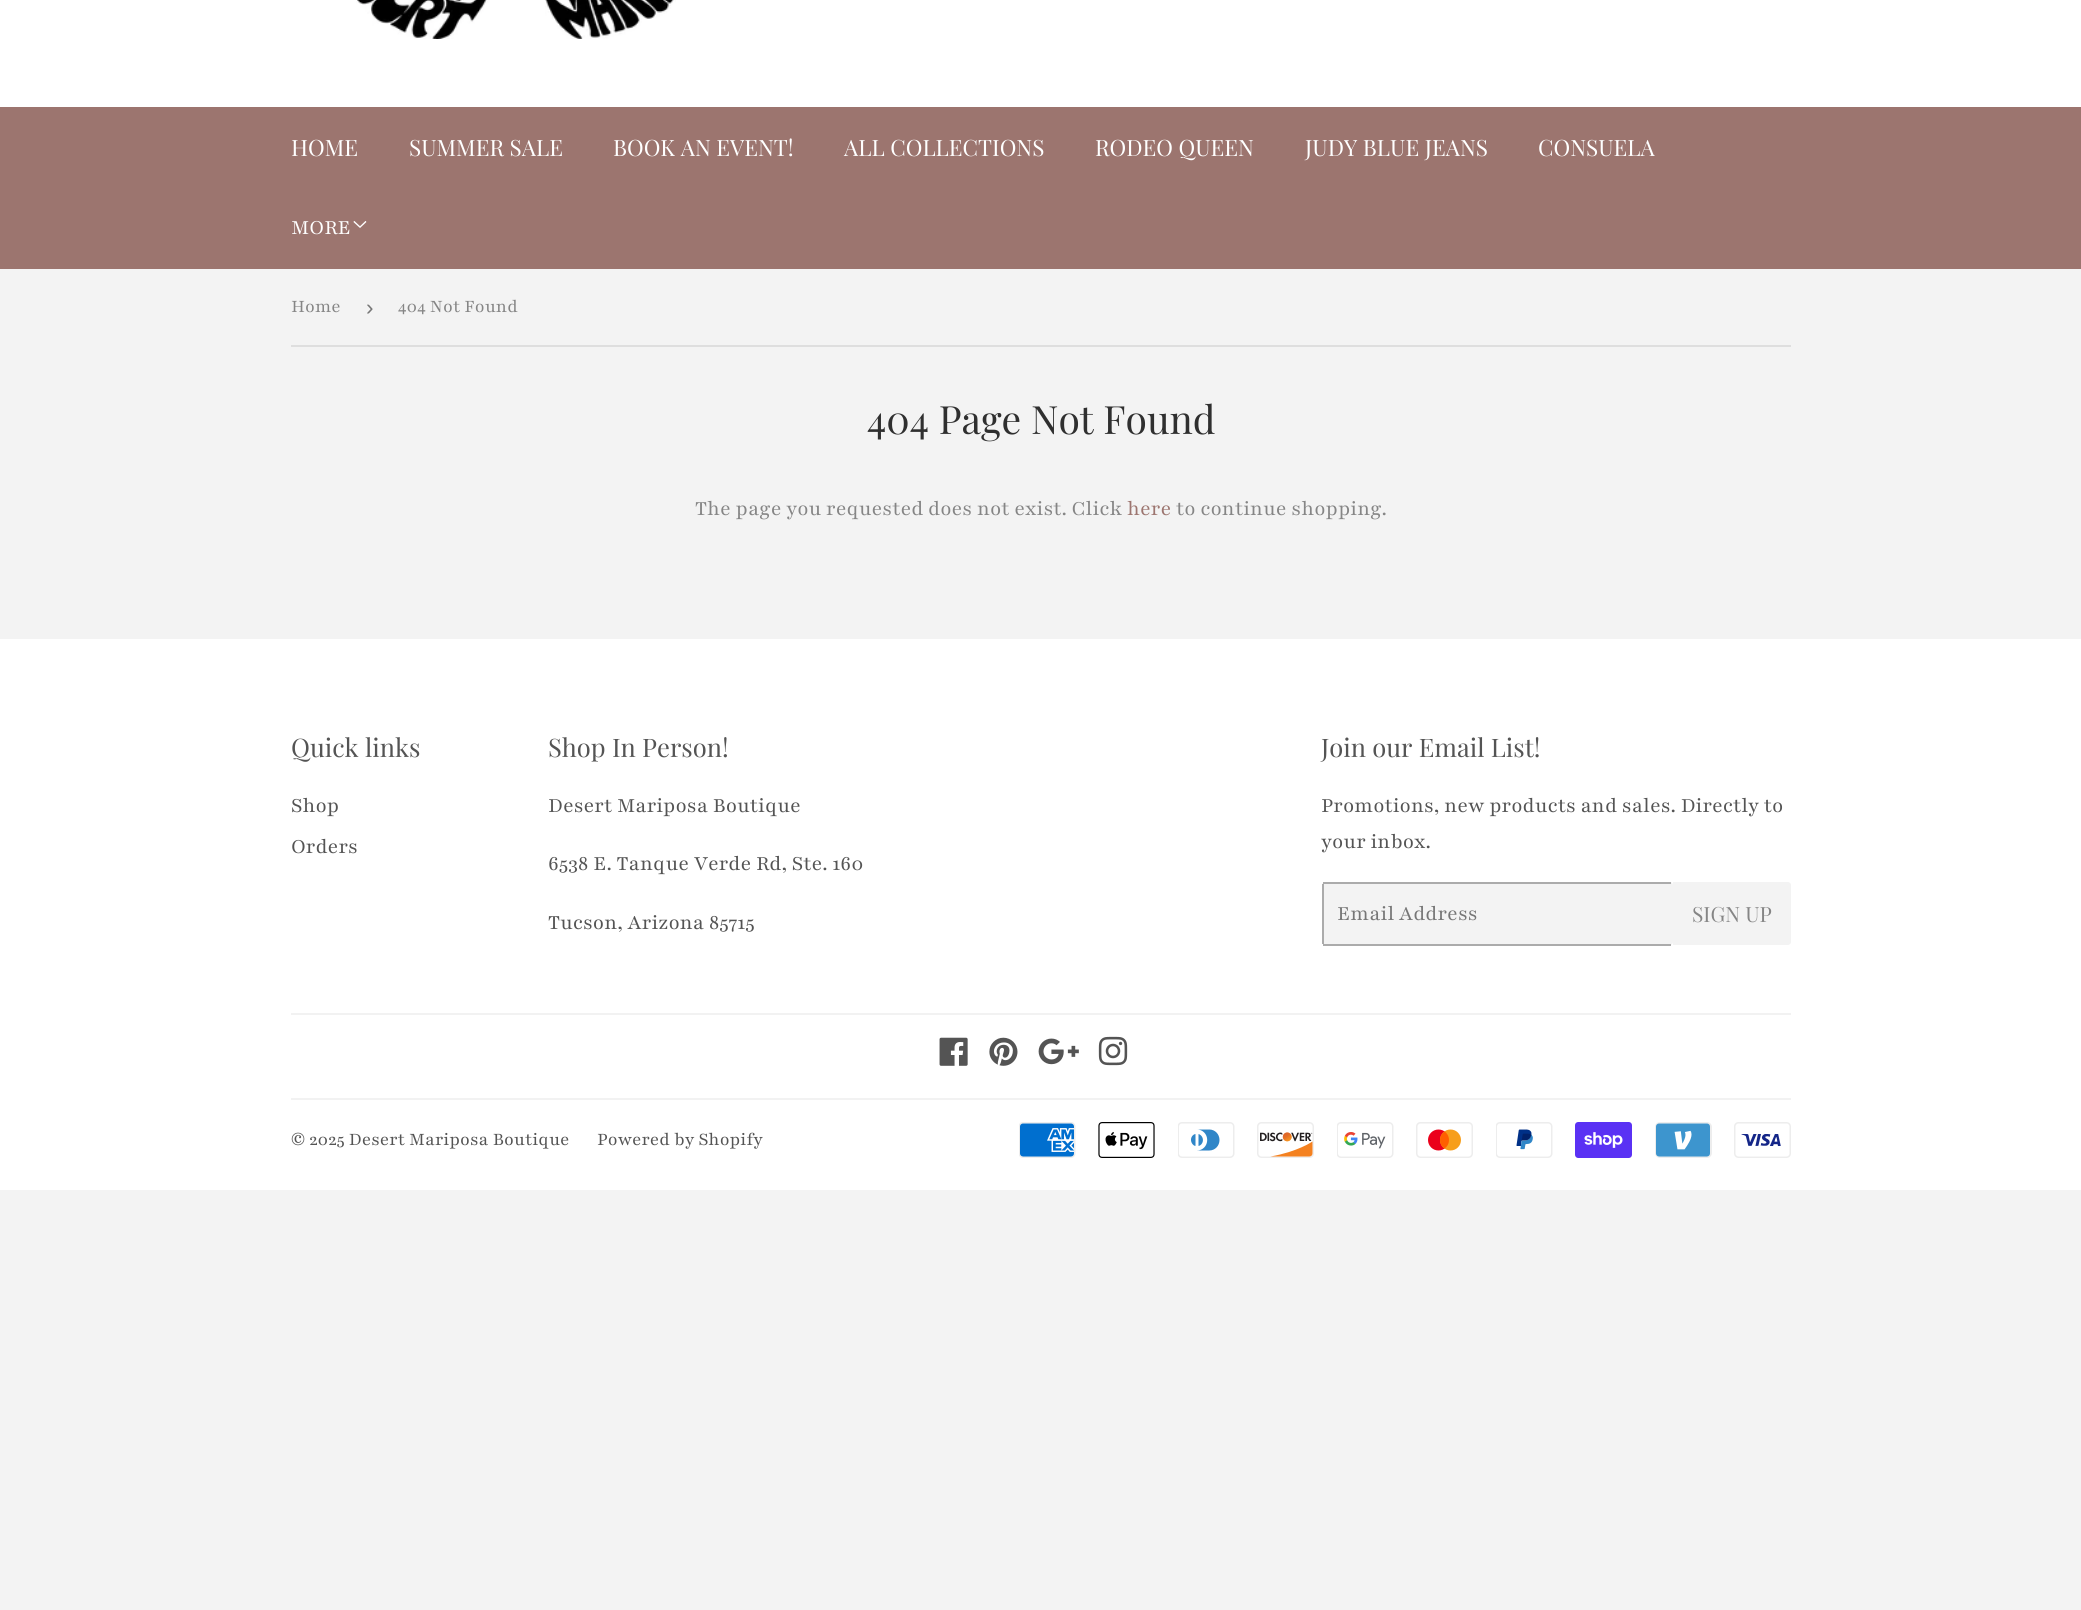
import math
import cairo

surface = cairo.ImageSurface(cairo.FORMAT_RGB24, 2081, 1610)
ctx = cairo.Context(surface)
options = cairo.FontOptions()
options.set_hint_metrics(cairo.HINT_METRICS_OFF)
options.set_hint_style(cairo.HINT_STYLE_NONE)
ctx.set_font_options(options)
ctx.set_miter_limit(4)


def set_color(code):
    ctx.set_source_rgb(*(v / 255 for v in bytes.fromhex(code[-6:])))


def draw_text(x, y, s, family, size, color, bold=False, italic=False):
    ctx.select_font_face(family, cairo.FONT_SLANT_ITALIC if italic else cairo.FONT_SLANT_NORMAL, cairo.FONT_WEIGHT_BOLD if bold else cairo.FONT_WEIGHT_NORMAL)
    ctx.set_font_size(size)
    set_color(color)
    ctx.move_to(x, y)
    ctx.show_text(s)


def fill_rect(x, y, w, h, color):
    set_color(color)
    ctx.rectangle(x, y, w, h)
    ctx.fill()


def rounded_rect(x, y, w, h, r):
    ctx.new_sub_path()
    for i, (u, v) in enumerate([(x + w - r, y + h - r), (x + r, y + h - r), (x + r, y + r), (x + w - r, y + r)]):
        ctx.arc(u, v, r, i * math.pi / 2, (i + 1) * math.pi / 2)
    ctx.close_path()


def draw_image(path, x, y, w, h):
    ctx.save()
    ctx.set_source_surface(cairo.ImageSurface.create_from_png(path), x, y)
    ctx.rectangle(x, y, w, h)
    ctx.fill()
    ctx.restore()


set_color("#f3f3f3")
ctx.paint()
fill_rect(0, 0, 2081, 107, "#ffffff")
draw_image("assets/img1.png", 356, 0, 320, 39)
fill_rect(0, 107, 2081, 162, "#9c756f")
draw_text(291, 156, "HOME", "Playfair Display", 22.5, "#ffffff")
draw_text(409, 156, "SUMMER SALE", "Playfair Display", 22.5, "#ffffff")
draw_text(613, 156, "BOOK AN EVENT!", "Playfair Display", 22.5, "#ffffff")
draw_text(844, 156, "ALL COLLECTIONS", "Playfair Display", 22.5, "#ffffff")
draw_text(1095, 156, "RODEO QUEEN", "Playfair Display", 22.5, "#ffffff")
draw_text(1305, 156, "JUDY BLUE JEANS", "Playfair Display", 22.5, "#ffffff")
draw_text(1538, 156, "CONSUELA", "Playfair Display", 22.5, "#ffffff")
draw_text(291, 234, "MORE", "Playfair", 22.5, "#ffffff")
draw_image("assets/img2.png", 353, 221, 14, 7)
fill_rect(291, 345, 1500, 2, "#dedede")
draw_text(291, 312, "Home", "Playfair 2", 19.5, "#858585")
draw_text(366, 315, "›", "Liberation Sans", 22.5, "#767676")
draw_text(398, 312, "404 Not Found", "Playfair 2", 19.5, "#858585")
draw_text(867, 434, "404 Page Not Found", "Playfair Display", 39, "#2f2f2f")
draw_text(695, 515, "The page you requested does not exist. Click", "Playfair", 22.5, "#858585")
draw_text(1127, 515, "here", "Playfair", 22.5, "#9c756f")
draw_text(1176, 515, "to continue shopping.", "Playfair", 22.5, "#858585")
fill_rect(0, 639, 2081, 551, "#ffffff")
draw_text(291, 757, "Quick links", "Playfair Display", 25.5, "#545454")
draw_text(291, 812, "Shop", "Playfair", 22.5, "#545454")
draw_text(291, 853, "Orders", "Playfair", 22.5, "#545454")
draw_text(548, 757, "Shop In Person!", "Playfair Display", 25.5, "#545454")
draw_text(548, 812, "Desert Mariposa Boutique", "Playfair", 22.5, "#545454")
draw_text(548, 870, "6538 E. Tanque Verde Rd, Ste. 160", "Playfair", 22.5, "#545454")
draw_text(548, 929, "Tucson, Arizona 85715", "Playfair", 22.5, "#545454")
draw_text(1321, 757, "Join our Email List!", "Playfair Display", 25.5, "#545454")
draw_text(1321, 812, "Promotions, new products and sales. Directly to", "Playfair", 22.5, "#545454")
draw_text(1321, 848, "your inbox.", "Playfair", 22.5, "#545454")
set_color("#f3f3f3")
rounded_rect(1322, 882, 351, 63, 3)
ctx.fill()
fill_rect(1323, 882, 348, 2, "#ababab")
fill_rect(1323, 944, 348, 2, "#ababab")
fill_rect(1322, 884, 2, 60, "#ababab")
draw_text(1337, 920, "Email Address", "Playfair", 22.5, "#767676")
set_color("#f3f3f3")
ctx.new_path()
ctx.move_to(1673, 882)
ctx.line_to(1788, 882)
ctx.curve_to(1789.5, 882, 1791, 883.5, 1791, 885)
ctx.line_to(1791, 942)
ctx.curve_to(1791, 943.5, 1789.5, 945, 1788, 945)
ctx.line_to(1673, 945)
ctx.close_path()
ctx.fill()
draw_text(1692, 922, "SIGN UP", "Playfair Display", 21, "#858585")
fill_rect(291, 1013, 1500, 2, "#f2f2f2")
draw_image("assets/img3.png", 939, 1037, 29, 29)
draw_image("assets/img4.png", 989, 1037, 29, 29)
draw_image("assets/img5.png", 1038, 1038, 41, 27)
draw_image("assets/img6.png", 1098, 1036, 30, 30)
fill_rect(291, 1098, 1500, 2, "#f2f2f2")
draw_text(291, 1145, "© 2025 Desert Mariposa Boutique", "Playfair 2", 19.5, "#545454")
draw_text(597, 1145, "Powered by Shopify", "Playfair 2", 19.5, "#545454")
draw_image("assets/img7.png", 1019, 1122, 57, 36)
draw_image("assets/img8.png", 1098, 1122, 57, 36)
draw_image("assets/img9.png", 1178, 1122, 57, 36)
draw_image("assets/img10.png", 1257, 1122, 57, 36)
draw_image("assets/img11.png", 1337, 1122, 57, 36)
draw_image("assets/img12.png", 1416, 1122, 57, 36)
draw_image("assets/img13.png", 1496, 1122, 57, 36)
draw_image("assets/img14.png", 1575, 1122, 57, 36)
draw_image("assets/img15.png", 1655, 1122, 57, 36)
draw_image("assets/img16.png", 1734, 1122, 57, 36)
surface.write_to_png("output.png")
